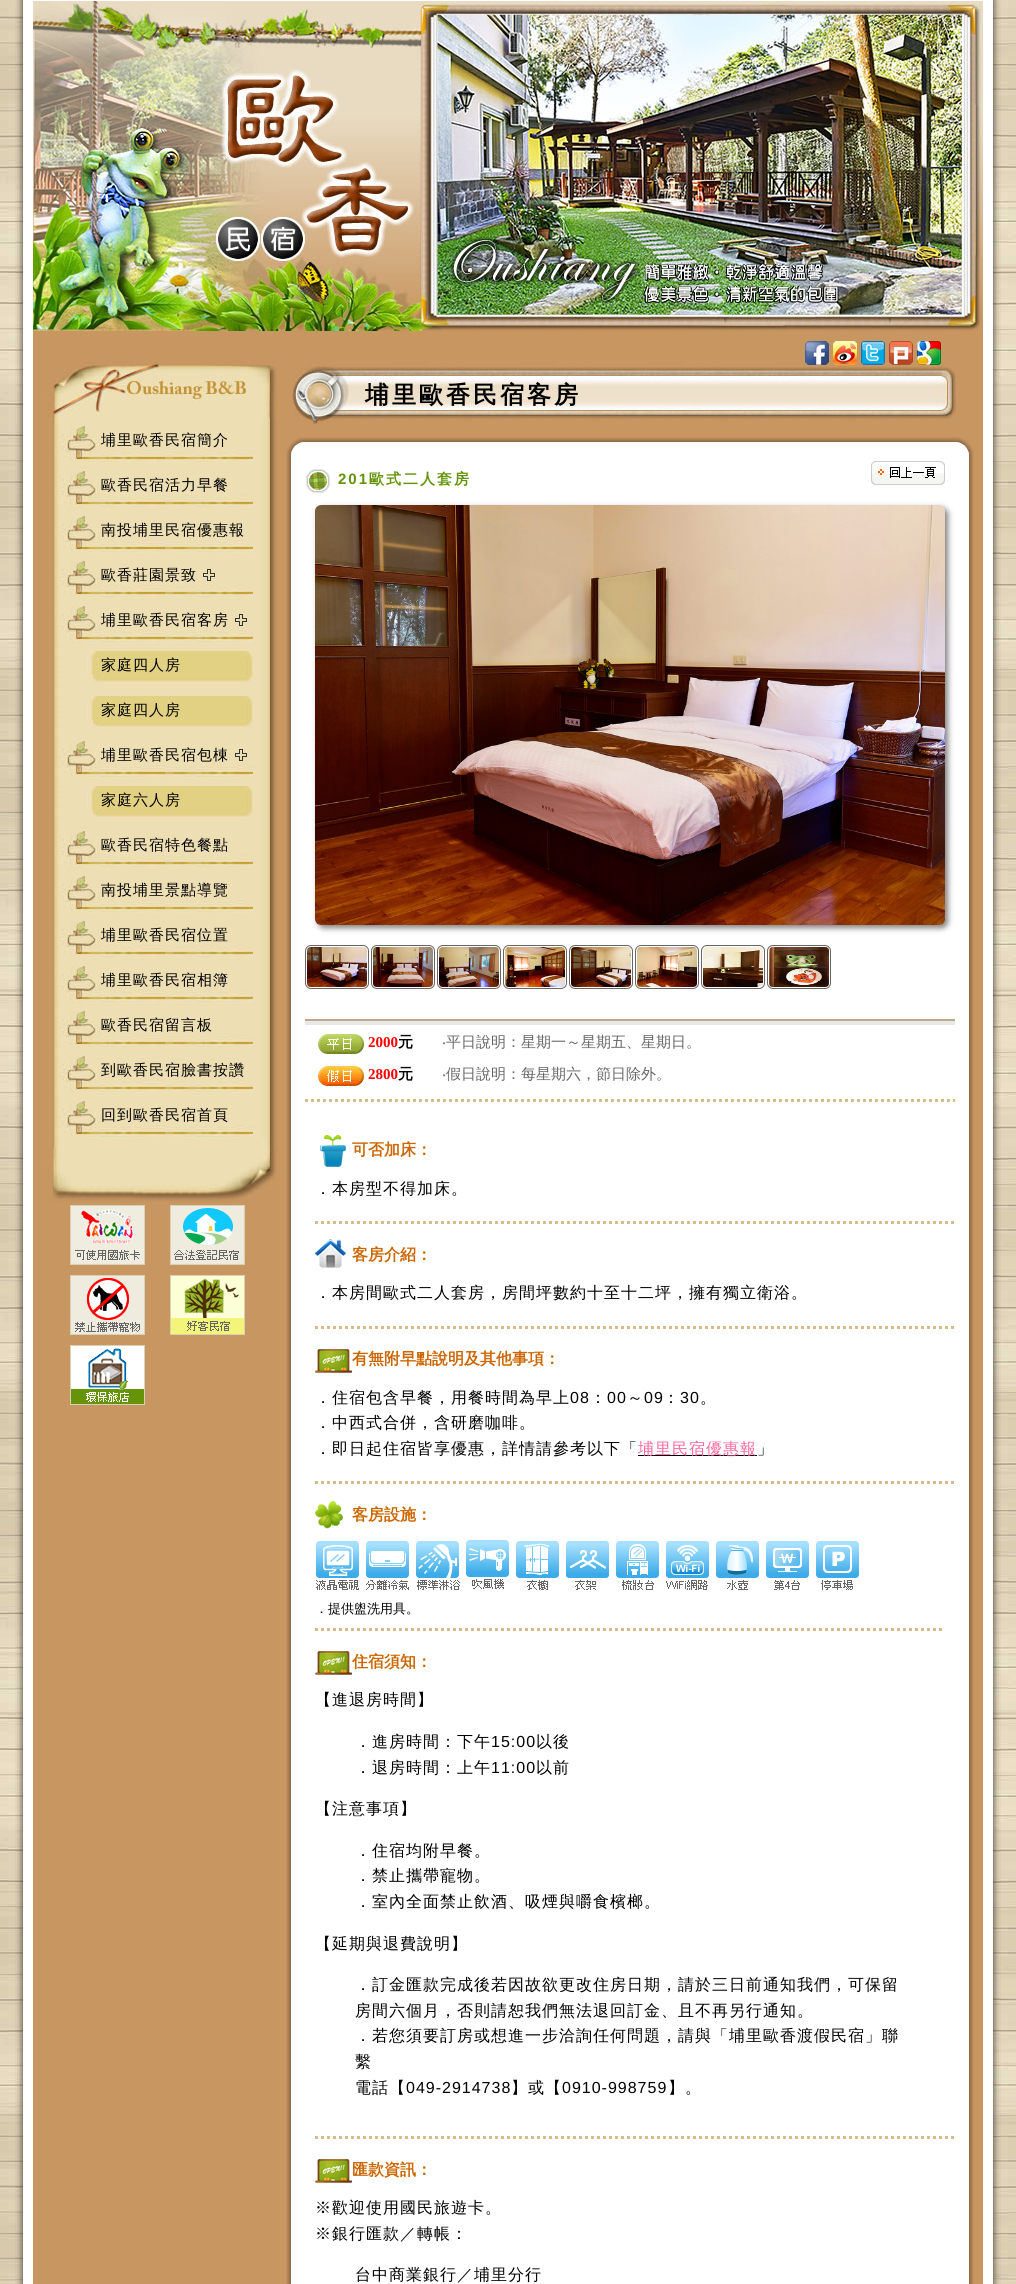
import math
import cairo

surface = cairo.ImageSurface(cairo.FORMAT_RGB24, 1016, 2284)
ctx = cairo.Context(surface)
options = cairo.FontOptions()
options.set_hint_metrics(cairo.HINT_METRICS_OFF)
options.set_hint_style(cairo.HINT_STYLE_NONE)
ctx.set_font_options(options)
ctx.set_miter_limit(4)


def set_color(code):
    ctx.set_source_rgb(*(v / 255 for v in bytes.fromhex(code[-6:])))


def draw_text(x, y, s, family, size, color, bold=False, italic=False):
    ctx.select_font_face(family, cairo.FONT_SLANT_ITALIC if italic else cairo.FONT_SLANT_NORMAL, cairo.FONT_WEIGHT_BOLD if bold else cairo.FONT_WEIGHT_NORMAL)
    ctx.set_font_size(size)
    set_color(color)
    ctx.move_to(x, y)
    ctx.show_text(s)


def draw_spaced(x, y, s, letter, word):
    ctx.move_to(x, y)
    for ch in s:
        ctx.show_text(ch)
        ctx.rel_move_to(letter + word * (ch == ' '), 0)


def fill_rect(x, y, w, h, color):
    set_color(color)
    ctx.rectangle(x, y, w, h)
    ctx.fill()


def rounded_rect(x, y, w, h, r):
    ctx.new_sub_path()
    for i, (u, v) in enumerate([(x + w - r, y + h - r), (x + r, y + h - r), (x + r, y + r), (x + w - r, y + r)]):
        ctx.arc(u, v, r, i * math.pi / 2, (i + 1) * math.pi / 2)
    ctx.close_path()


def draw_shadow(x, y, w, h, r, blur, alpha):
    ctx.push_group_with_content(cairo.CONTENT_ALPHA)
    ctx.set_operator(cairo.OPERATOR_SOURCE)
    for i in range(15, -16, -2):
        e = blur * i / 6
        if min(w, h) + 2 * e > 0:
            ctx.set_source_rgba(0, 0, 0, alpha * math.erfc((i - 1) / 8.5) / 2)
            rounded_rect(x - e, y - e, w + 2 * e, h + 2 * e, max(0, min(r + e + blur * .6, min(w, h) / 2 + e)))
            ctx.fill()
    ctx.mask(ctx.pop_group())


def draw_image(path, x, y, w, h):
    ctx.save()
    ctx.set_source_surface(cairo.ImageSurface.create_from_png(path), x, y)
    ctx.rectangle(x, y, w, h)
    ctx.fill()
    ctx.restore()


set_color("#ffffff")
ctx.paint()
draw_image("assets/img1.png", 0, 0, 1016, 2284)
draw_image("assets/img2.png", 16, 0, 17, 1)
fill_rect(33, 0, 950, 1, "#ffffff")
draw_image("assets/img3.png", 983, 0, 17, 1)
draw_image("assets/img4.png", 15, 1, 18, 2283)
fill_rect(33, 331, 950, 1953, "#c89661")
draw_image("assets/img5.png", 33, 1, 950, 330)
draw_image("assets/img6.png", 47, 362, 230, 56)
draw_image("assets/img7.png", 49, 418, 228, 730)
draw_image("assets/img8.png", 61, 418, 204, 45)
ctx.select_font_face("WenQuanYi Zen Hei Medium")
ctx.set_font_size(15)
set_color("#000000")
draw_spaced(101, 445, "埔里歐香民宿簡介", 1, 0)
draw_image("assets/img8.png", 61, 463, 204, 45)
draw_spaced(101, 490, "歐香民宿活力早餐", 1, 0)
draw_image("assets/img8.png", 61, 508, 204, 45)
draw_spaced(101, 535, "南投埔里民宿優惠報", 1, 0)
draw_image("assets/img8.png", 61, 553, 204, 45)
draw_spaced(101, 580, "歐香莊園景致", 1, 0)
draw_image("assets/img9.png", 203, 569, 12, 12)
draw_image("assets/img8.png", 61, 598, 204, 45)
draw_spaced(101, 625, "埔里歐香民宿客房", 1, 0)
draw_image("assets/img9.png", 235, 614, 12, 12)
draw_image("assets/img10.png", 85, 643, 180, 45)
draw_spaced(101, 670, "家庭四人房", 1, 0)
draw_image("assets/img10.png", 85, 688, 180, 45)
draw_spaced(101, 715, "家庭四人房", 1, 0)
draw_image("assets/img8.png", 61, 733, 204, 45)
draw_spaced(101, 760, "埔里歐香民宿包棟", 1, 0)
draw_image("assets/img9.png", 235, 749, 12, 12)
draw_image("assets/img10.png", 85, 778, 180, 45)
draw_spaced(101, 805, "家庭六人房", 1, 0)
draw_image("assets/img8.png", 61, 823, 204, 45)
draw_spaced(101, 850, "歐香民宿特色餐點", 1, 0)
draw_image("assets/img8.png", 61, 868, 204, 45)
draw_spaced(101, 895, "南投埔里景點導覽", 1, 0)
draw_image("assets/img8.png", 61, 913, 204, 45)
draw_spaced(101, 940, "埔里歐香民宿位置", 1, 0)
draw_image("assets/img8.png", 61, 958, 204, 45)
draw_spaced(101, 985, "埔里歐香民宿相簿", 1, 0)
draw_image("assets/img8.png", 61, 1003, 204, 45)
draw_spaced(101, 1030, "歐香民宿留言板", 1, 0)
draw_image("assets/img8.png", 61, 1048, 204, 45)
draw_spaced(101, 1075, "到歐香民宿臉書按讚", 1, 0)
draw_image("assets/img8.png", 61, 1093, 204, 45)
draw_spaced(101, 1120, "回到歐香民宿首頁", 1, 0)
draw_image("assets/img11.png", 47, 1148, 232, 54)
draw_image("assets/img12.png", 70, 1205, 75, 60)
draw_image("assets/img13.png", 170, 1205, 75, 60)
draw_image("assets/img14.png", 70, 1275, 75, 60)
draw_image("assets/img15.png", 170, 1275, 75, 60)
draw_image("assets/img16.png", 70, 1345, 75, 60)
draw_image("assets/img17.png", 805, 341, 24, 24)
draw_image("assets/img18.png", 833, 341, 24, 24)
draw_image("assets/img19.png", 861, 341, 24, 24)
draw_image("assets/img20.png", 889, 341, 24, 24)
draw_image("assets/img21.png", 917, 341, 24, 24)
draw_image("assets/img22.png", 291, 365, 666, 60)
ctx.select_font_face("WenQuanYi Zen Hei", cairo.FONT_SLANT_NORMAL, cairo.FONT_WEIGHT_BOLD)
ctx.set_font_size(24)
draw_spaced(365, 403, "埔里歐香民宿客房", 3, 0)
draw_image("assets/img23.png", 286, 437, 19, 19)
draw_image("assets/img24.png", 305, 437, 650, 19)
draw_image("assets/img25.png", 955, 437, 19, 19)
draw_image("assets/img26.png", 286, 456, 19, 1828)
fill_rect(305, 456, 650, 1828, "#ffffff")
draw_image("assets/img27.png", 306, 469, 24, 24)
ctx.select_font_face("Liberation Sans", cairo.FONT_SLANT_NORMAL, cairo.FONT_WEIGHT_BOLD)
ctx.set_font_size(15)
set_color("#629306")
draw_spaced(338, 484, "201", 2, 0)
ctx.select_font_face("WenQuanYi Zen Hei", cairo.FONT_SLANT_NORMAL, cairo.FONT_WEIGHT_BOLD)
draw_spaced(369, 484, "歐式二人套房", 2, 0)
draw_image("assets/img28.png", 871, 461, 74, 24)
draw_image("assets/img56.png", 955, 456, 19, 1828)
set_color("#808080")
draw_shadow(318, 508, 630, 420, 6, 3, 1)
draw_image("assets/img29.png", 315, 505, 630, 420)
rounded_rect(305.5, 945.5, 63, 43, 5.5)
set_color("#666666")
ctx.set_line_width(1)
ctx.stroke()
draw_image("assets/img30.png", 307, 947, 60, 40)
rounded_rect(371.5, 945.5, 63, 43, 5.5)
ctx.stroke()
draw_image("assets/img31.png", 373, 947, 60, 40)
rounded_rect(437.5, 945.5, 63, 43, 5.5)
ctx.stroke()
draw_image("assets/img32.png", 439, 947, 60, 40)
rounded_rect(503.5, 945.5, 63, 43, 5.5)
ctx.stroke()
draw_image("assets/img33.png", 505, 947, 60, 40)
rounded_rect(569.5, 945.5, 63, 43, 5.5)
ctx.stroke()
draw_image("assets/img34.png", 571, 947, 60, 40)
rounded_rect(635.5, 945.5, 63, 43, 5.5)
ctx.stroke()
draw_image("assets/img35.png", 637, 947, 60, 40)
rounded_rect(701.5, 945.5, 63, 43, 5.5)
ctx.stroke()
draw_image("assets/img36.png", 703, 947, 60, 40)
rounded_rect(767.5, 945.5, 63, 43, 5.5)
ctx.stroke()
draw_image("assets/img37.png", 769, 947, 60, 40)
draw_image("assets/img38.png", 305, 1019, 650, 6)
draw_image("assets/img39.png", 318, 1034, 46, 20)
draw_text(368, 1047, "2000", "Liberation Serif", 15, "#ff0000", bold=True)
draw_text(398, 1047, "元", "WenQuanYi Zen Hei", 15, "#000000", bold=True)
draw_text(442, 1047, "‧", "Noto Sans", 15, "#666666")
draw_text(446, 1047, "平日說明：星期一～星期五、星期日。", "WenQuanYi Zen Hei Medium", 15, "#666666")
draw_image("assets/img40.png", 318, 1066, 46, 20)
draw_text(368, 1079, "2800", "Liberation Serif", 15, "#ff0000", bold=True)
draw_text(398, 1079, "元", "WenQuanYi Zen Hei", 15, "#000000", bold=True)
draw_text(442, 1079, "‧", "Noto Sans", 15, "#666666")
draw_text(446, 1079, "假日說明：每星期六，節日除外。", "WenQuanYi Zen Hei Medium", 15, "#666666")
ctx.new_path()
ctx.move_to(305, 1100.5)
ctx.line_to(955, 1100.5)
set_color("#d7bc8a")
ctx.set_line_width(3)
ctx.set_dash([3, 3])
ctx.stroke()
draw_image("assets/img41.png", 320, 1135, 26, 32)
draw_text(352, 1155, "可否加床：", "WenQuanYi Zen Hei", 16, "#cc6600", bold=True)
ctx.new_path()
ctx.move_to(315, 1222.5)
ctx.line_to(955, 1222.5)
set_color("#d7bc8a")
ctx.stroke()
ctx.select_font_face("WenQuanYi Zen Hei Medium")
set_color("#000000")
draw_spaced(315, 1194, "．本房型不得加床。", 1, 0)
draw_image("assets/img42.png", 315, 1239, 31, 29)
draw_text(352, 1260, "客房介紹：", "WenQuanYi Zen Hei", 16, "#cc6600", bold=True)
ctx.new_path()
ctx.move_to(315, 1327.5)
ctx.line_to(955, 1327.5)
set_color("#d7bc8a")
ctx.stroke()
ctx.select_font_face("WenQuanYi Zen Hei Medium")
set_color("#000000")
draw_spaced(315, 1298, "．本房間歐式二人套房，房間坪數約十至十二坪，擁有獨立衛浴。", 1, 0)
draw_image("assets/img43.png", 315, 1349, 37, 24)
draw_text(352, 1364, "有無附早點說明及其他事項：", "WenQuanYi Zen Hei", 16, "#cc6600", bold=True)
ctx.new_path()
ctx.move_to(315, 1482.5)
ctx.line_to(955, 1482.5)
set_color("#d7bc8a")
ctx.stroke()
ctx.select_font_face("WenQuanYi Zen Hei Medium")
set_color("#000000")
draw_spaced(315, 1403, "．住宿包含早餐，用餐時間為早上", 1, 0)
ctx.select_font_face("Liberation Sans")
draw_spaced(570, 1403, "08", 1, 0)
ctx.select_font_face("WenQuanYi Zen Hei Medium")
draw_spaced(590, 1403, "：", 1, 0)
ctx.select_font_face("Liberation Sans")
draw_spaced(607, 1403, "00", 1, 0)
ctx.select_font_face("WenQuanYi Zen Hei Medium")
draw_spaced(627, 1403, "～", 1, 0)
ctx.select_font_face("Liberation Sans")
draw_spaced(644, 1403, "09", 1, 0)
ctx.select_font_face("WenQuanYi Zen Hei Medium")
draw_spaced(663, 1403, "：", 1, 0)
ctx.select_font_face("Liberation Sans")
draw_spaced(680, 1403, "30", 1, 0)
ctx.select_font_face("WenQuanYi Zen Hei Medium")
draw_spaced(700, 1403, "。", 1, 0)
draw_spaced(315, 1428, "．中西式合併，含研磨咖啡。", 1, 0)
draw_spaced(315, 1454, "．即日起住宿皆享優惠，詳情請參考以下「", 1, 0)
fill_rect(638, 1455, 119, 1, "#000000")
set_color("#ff6699")
draw_spaced(638, 1454, "埔里民宿優惠報", 1, 0)
set_color("#000000")
draw_spaced(757, 1454, "」", 1, 0)
draw_image("assets/img44.png", 315, 1501, 28, 28)
draw_text(352, 1520, "客房設施：", "WenQuanYi Zen Hei", 16, "#cc6600", bold=True)
ctx.new_path()
ctx.move_to(315, 1629.5)
ctx.line_to(945, 1629.5)
set_color("#d7bc8a")
ctx.stroke()
draw_image("assets/img45.png", 316, 1541, 43, 49)
draw_image("assets/img46.png", 366, 1541, 43, 49)
draw_image("assets/img47.png", 416, 1541, 44, 49)
draw_image("assets/img48.png", 466, 1540, 43, 49)
draw_image("assets/img49.png", 516, 1541, 43, 49)
draw_image("assets/img50.png", 566, 1541, 43, 49)
draw_image("assets/img51.png", 616, 1541, 43, 49)
draw_image("assets/img52.png", 666, 1541, 43, 49)
draw_image("assets/img53.png", 716, 1541, 43, 49)
draw_image("assets/img54.png", 766, 1541, 43, 49)
draw_image("assets/img55.png", 816, 1541, 43, 49)
draw_text(315, 1613, "．提供盥洗用具。", "WenQuanYi Zen Hei Medium", 13, "#000000")
draw_image("assets/img43.png", 315, 1651, 37, 24)
draw_text(352, 1667, "住宿須知：", "WenQuanYi Zen Hei", 16, "#cc6600", bold=True)
ctx.new_path()
ctx.move_to(315, 2137.5)
ctx.line_to(955, 2137.5)
set_color("#d7bc8a")
ctx.stroke()
ctx.select_font_face("WenQuanYi Zen Hei Medium")
set_color("#000000")
draw_spaced(315, 1705, "【進退房時間】", 1, 0)
draw_spaced(355, 1747, "．進房時間：下午", 1, 0)
ctx.select_font_face("Liberation Sans")
draw_spaced(491, 1747, "15:00", 1, 0)
ctx.select_font_face("WenQuanYi Zen Hei Medium")
draw_spaced(536, 1747, "以後", 1, 0)
draw_spaced(355, 1773, "．退房時間：上午", 1, 0)
ctx.select_font_face("Liberation Sans")
draw_spaced(491, 1773, "11:00", 1, 0)
ctx.select_font_face("WenQuanYi Zen Hei Medium")
draw_spaced(536, 1773, "以前", 1, 0)
draw_spaced(315, 1814, "【注意事項】", 1, 0)
draw_spaced(355, 1856, "．住宿均附早餐。", 1, 0)
draw_spaced(355, 1881, "．禁止攜帶寵物。", 1, 0)
draw_spaced(355, 1907, "．室內全面禁止飲酒、吸煙與嚼食檳榔。", 1, 0)
draw_spaced(315, 1949, "【延期與退費說明】", 1, 0)
draw_spaced(355, 1990, "．訂金匯款完成後若因故欲更改住房日期，請於三日前通知我們，可保留", 1, 0)
draw_spaced(355, 2016, "房間六個月，否則請恕我們無法退回訂金、且不再另行通知。", 1, 0)
draw_spaced(355, 2041, "．若您須要訂房或想進一步洽詢任何問題，請與「埔里歐香渡假民宿」聯", 1, 0)
draw_spaced(355, 2067, "繫", 1, 0)
draw_spaced(355, 2093, "電話【", 1, 0)
ctx.select_font_face("Liberation Sans")
draw_spaced(406, 2093, "049-2914738", 1, 0)
ctx.select_font_face("WenQuanYi Zen Hei Medium")
draw_spaced(511, 2093, "】或【", 1, 0)
ctx.select_font_face("Liberation Sans")
draw_spaced(562, 2093, "0910-998759", 1, 0)
ctx.select_font_face("WenQuanYi Zen Hei Medium")
draw_spaced(668, 2093, "】。", 1, 0)
draw_image("assets/img43.png", 315, 2159, 37, 24)
draw_text(352, 2175, "匯款資訊：", "WenQuanYi Zen Hei", 16, "#cc6600", bold=True)
ctx.select_font_face("WenQuanYi Zen Hei Medium")
set_color("#000000")
draw_spaced(315, 2213, "※歡迎使用國民旅遊卡。", 1, 0)
draw_spaced(315, 2239, "※銀行匯款／轉帳：", 1, 0)
draw_spaced(355, 2280, "台中商業銀行／埔里分行", 1, 0)
draw_image("assets/img57.png", 983, 1, 18, 2283)
surface.write_to_png("output.png")
